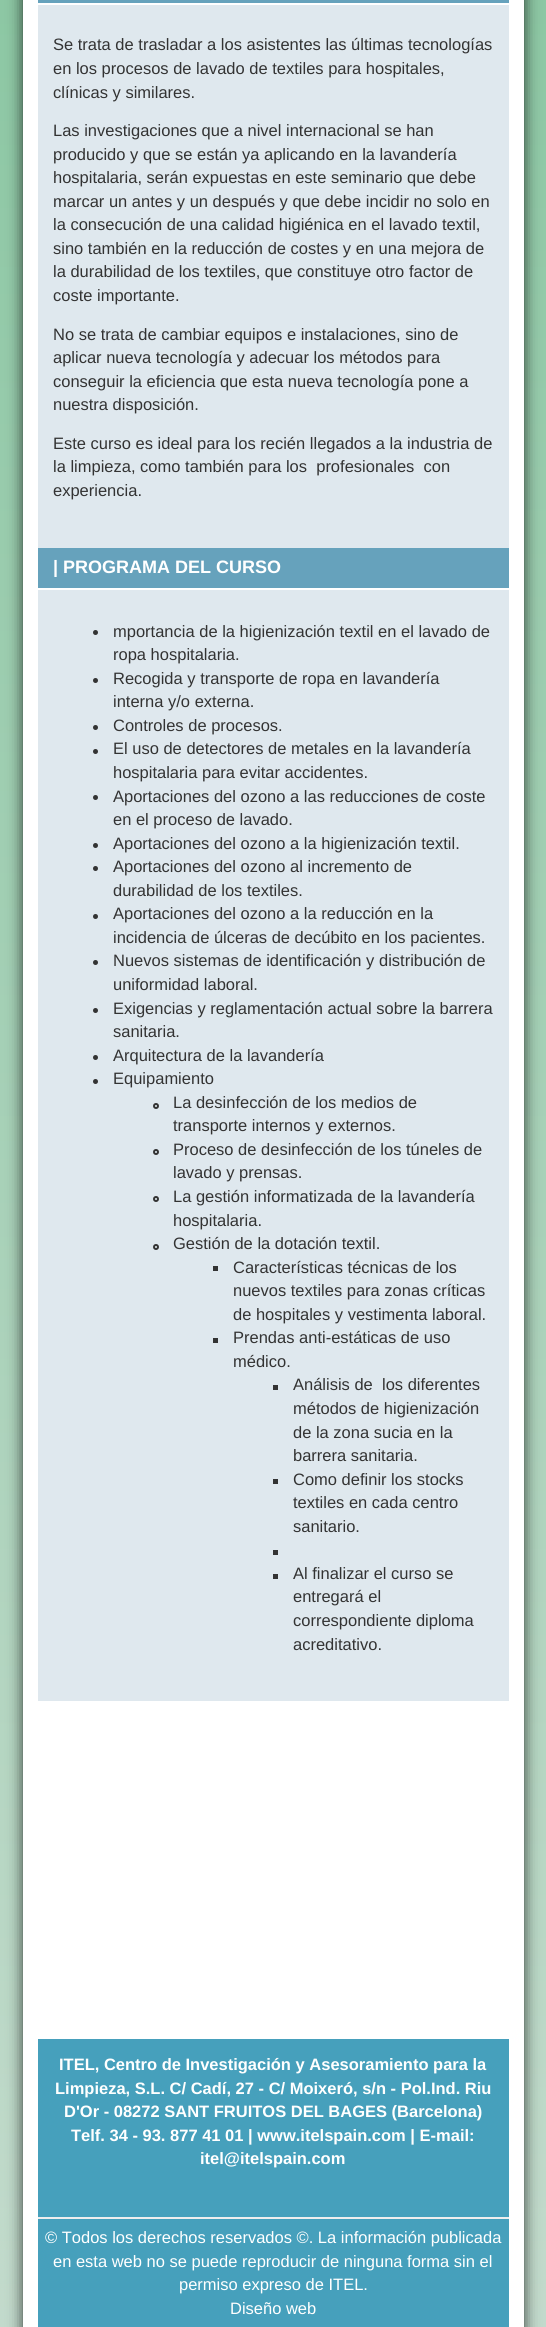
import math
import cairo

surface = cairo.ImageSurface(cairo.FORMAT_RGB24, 546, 2327)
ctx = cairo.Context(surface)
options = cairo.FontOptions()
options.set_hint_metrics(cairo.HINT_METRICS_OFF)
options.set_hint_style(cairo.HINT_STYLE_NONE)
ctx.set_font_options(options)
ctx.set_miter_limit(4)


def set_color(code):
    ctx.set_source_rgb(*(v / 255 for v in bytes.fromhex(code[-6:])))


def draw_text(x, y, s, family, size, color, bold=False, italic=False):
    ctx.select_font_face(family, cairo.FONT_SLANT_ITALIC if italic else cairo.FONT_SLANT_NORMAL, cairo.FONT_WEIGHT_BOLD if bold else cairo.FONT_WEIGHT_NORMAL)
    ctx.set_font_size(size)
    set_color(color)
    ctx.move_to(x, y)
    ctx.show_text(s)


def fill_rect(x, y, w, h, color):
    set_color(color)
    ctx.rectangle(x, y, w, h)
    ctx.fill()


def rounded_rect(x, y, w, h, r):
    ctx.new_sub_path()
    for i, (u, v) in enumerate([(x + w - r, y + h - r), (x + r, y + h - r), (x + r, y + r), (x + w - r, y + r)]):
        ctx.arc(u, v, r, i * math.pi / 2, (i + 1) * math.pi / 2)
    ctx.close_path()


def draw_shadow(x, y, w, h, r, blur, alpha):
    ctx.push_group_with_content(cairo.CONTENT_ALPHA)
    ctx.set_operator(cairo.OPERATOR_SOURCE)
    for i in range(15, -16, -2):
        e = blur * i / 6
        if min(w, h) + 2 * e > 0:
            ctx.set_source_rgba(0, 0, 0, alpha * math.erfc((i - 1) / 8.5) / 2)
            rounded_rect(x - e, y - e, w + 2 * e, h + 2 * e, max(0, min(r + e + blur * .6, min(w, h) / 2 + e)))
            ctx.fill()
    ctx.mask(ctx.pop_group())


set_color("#ffffff")
ctx.paint()
gradient = cairo.LinearGradient(273, -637, 273, 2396)
gradient.add_color_stop_rgba(0, 0.494, 0.761, 0.6, 1)
gradient.add_color_stop_rgba(1, 0.769, 0.859, 0.804, 1)
ctx.set_source(gradient)
ctx.rectangle(0, 0, 546, 2327)
ctx.fill()
set_color("#000000")
draw_shadow(23, -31, 501, 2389, 8, 7.5, 0.75)
fill_rect(23, 0, 501, 2327, "#ffffff")
fill_rect(38, 5, 471, 543, "#dfe8ee")
fill_rect(38, 0, 471, 3, "#66a2bc")
draw_text(53, 50, "Se trata de trasladar a los asistentes las últimas tecnologías", "Liberation Sans", 16.5, "#333333")
draw_text(53, 74, "en los procesos de lavado de textiles para hospitales,", "Liberation Sans", 16.5, "#333333")
draw_text(53, 98, "clínicas y similares.", "Liberation Sans", 16.5, "#333333")
draw_text(53, 136, "Las investigaciones que a nivel internacional se han", "Liberation Sans", 16.5, "#333333")
draw_text(53, 160, "producido y que se están ya aplicando en la lavandería", "Liberation Sans", 16.5, "#333333")
draw_text(53, 183, "hospitalaria, serán expuestas en este seminario que debe", "Liberation Sans", 16.5, "#333333")
draw_text(53, 207, "marcar un antes y un después y que debe incidir no solo en", "Liberation Sans", 16.5, "#333333")
draw_text(53, 230, "la consecución de una calidad higiénica en el lavado textil,", "Liberation Sans", 16.5, "#333333")
draw_text(53, 254, "sino también en la reducción de costes y en una mejora de", "Liberation Sans", 16.5, "#333333")
draw_text(53, 277, "la durabilidad de los textiles, que constituye otro factor de", "Liberation Sans", 16.5, "#333333")
draw_text(53, 301, "coste importante.", "Liberation Sans", 16.5, "#333333")
draw_text(53, 340, "No se trata de cambiar equipos e instalaciones, sino de", "Liberation Sans", 16.5, "#333333")
draw_text(53, 363, "aplicar nueva tecnología y adecuar los métodos para", "Liberation Sans", 16.5, "#333333")
draw_text(53, 387, "conseguir la eficiencia que esta nueva tecnología pone a", "Liberation Sans", 16.5, "#333333")
draw_text(53, 410, "nuestra disposición.", "Liberation Sans", 16.5, "#333333")
draw_text(53, 449, "Este curso es ideal para los recién llegados a la industria de", "Liberation Sans", 16.5, "#333333")
draw_text(53, 472, "la limpieza, como también para los  profesionales  con", "Liberation Sans", 16.5, "#333333")
draw_text(53, 496, "experiencia.", "Liberation Sans", 16.5, "#333333")
fill_rect(38, 590, 471, 1111, "#dfe8ee")
fill_rect(38, 548, 471, 40, "#66a2bc")
draw_text(53, 573, "| PROGRAMA DEL CURSO", "Liberation Sans", 18, "#ffffff", bold=True)
set_color("#333333")
ctx.new_path()
ctx.arc(95.5, 632.5, 2.5, 0, 2 * math.pi)
ctx.fill()
draw_text(113, 637, "mportancia de la higienización textil en el lavado de", "Liberation Sans", 16.5, "#333333")
draw_text(113, 660, "ropa hospitalaria.", "Liberation Sans", 16.5, "#333333")
ctx.new_path()
ctx.arc(95.5, 680.5, 2.5, 0, 2 * math.pi)
ctx.fill()
draw_text(113, 684, "Recogida y transporte de ropa en lavandería", "Liberation Sans", 16.5, "#333333")
draw_text(113, 707, "interna y/o externa.", "Liberation Sans", 16.5, "#333333")
ctx.new_path()
ctx.arc(95.5, 727.5, 2.5, 0, 2 * math.pi)
ctx.fill()
draw_text(113, 731, "Controles de procesos.", "Liberation Sans", 16.5, "#333333")
ctx.new_path()
ctx.arc(95.5, 751.5, 2.5, 0, 2 * math.pi)
ctx.fill()
draw_text(113, 754, "El uso de detectores de metales en la lavandería", "Liberation Sans", 16.5, "#333333")
draw_text(113, 778, "hospitalaria para evitar accidentes.", "Liberation Sans", 16.5, "#333333")
ctx.new_path()
ctx.arc(95.5, 797.5, 2.5, 0, 2 * math.pi)
ctx.fill()
draw_text(113, 802, "Aportaciones del ozono a las reducciones de coste", "Liberation Sans", 16.5, "#333333")
draw_text(113, 825, "en el proceso de lavado.", "Liberation Sans", 16.5, "#333333")
ctx.new_path()
ctx.arc(95.5, 845.5, 2.5, 0, 2 * math.pi)
ctx.fill()
draw_text(113, 849, "Aportaciones del ozono a la higienización textil.", "Liberation Sans", 16.5, "#333333")
ctx.new_path()
ctx.arc(95.5, 868.5, 2.5, 0, 2 * math.pi)
ctx.fill()
draw_text(113, 872, "Aportaciones del ozono al incremento de", "Liberation Sans", 16.5, "#333333")
draw_text(113, 896, "durabilidad de los textiles.", "Liberation Sans", 16.5, "#333333")
ctx.new_path()
ctx.arc(95.5, 916.5, 2.5, 0, 2 * math.pi)
ctx.fill()
draw_text(113, 919, "Aportaciones del ozono a la reducción en la", "Liberation Sans", 16.5, "#333333")
draw_text(113, 943, "incidencia de úlceras de decúbito en los pacientes.", "Liberation Sans", 16.5, "#333333")
ctx.new_path()
ctx.arc(95.5, 962.5, 2.5, 0, 2 * math.pi)
ctx.fill()
draw_text(113, 966, "Nuevos sistemas de identificación y distribución de", "Liberation Sans", 16.5, "#333333")
draw_text(113, 990, "uniformidad laboral.", "Liberation Sans", 16.5, "#333333")
ctx.new_path()
ctx.arc(95.5, 1010.5, 2.5, 0, 2 * math.pi)
ctx.fill()
draw_text(113, 1014, "Exigencias y reglamentación actual sobre la barrera", "Liberation Sans", 16.5, "#333333")
draw_text(113, 1037, "sanitaria.", "Liberation Sans", 16.5, "#333333")
ctx.new_path()
ctx.arc(95.5, 1057.5, 2.5, 0, 2 * math.pi)
ctx.fill()
draw_text(113, 1061, "Arquitectura de la lavandería", "Liberation Sans", 16.5, "#333333")
ctx.new_path()
ctx.arc(95.5, 1081.5, 2.5, 0, 2 * math.pi)
ctx.fill()
draw_text(113, 1084, "Equipamiento", "Liberation Sans", 16.5, "#333333")
ctx.new_path()
ctx.arc(156, 1106, 2, 0, 2 * math.pi)
ctx.stroke()
draw_text(173, 1108, "La desinfección de los medios de", "Liberation Sans", 16.5, "#333333")
draw_text(173, 1131, "transporte internos y externos.", "Liberation Sans", 16.5, "#333333")
ctx.new_path()
ctx.arc(156, 1152, 2, 0, 2 * math.pi)
ctx.stroke()
draw_text(173, 1155, "Proceso de desinfección de los túneles de", "Liberation Sans", 16.5, "#333333")
draw_text(173, 1178, "lavado y prensas.", "Liberation Sans", 16.5, "#333333")
ctx.new_path()
ctx.arc(156, 1199, 2, 0, 2 * math.pi)
ctx.stroke()
draw_text(173, 1202, "La gestión informatizada de la lavandería", "Liberation Sans", 16.5, "#333333")
draw_text(173, 1226, "hospitalaria.", "Liberation Sans", 16.5, "#333333")
ctx.new_path()
ctx.arc(156, 1247, 2, 0, 2 * math.pi)
ctx.stroke()
draw_text(173, 1249, "Gestión de la dotación textil.", "Liberation Sans", 16.5, "#333333")
fill_rect(213, 1266, 5, 5, "#333333")
draw_text(233, 1273, "Características técnicas de los", "Liberation Sans", 16.5, "#333333")
draw_text(233, 1296, "nuevos textiles para zonas críticas", "Liberation Sans", 16.5, "#333333")
draw_text(233, 1320, "de hospitales y vestimenta laboral.", "Liberation Sans", 16.5, "#333333")
fill_rect(213, 1338, 5, 5, "#333333")
draw_text(233, 1343, "Prendas anti-estáticas de uso", "Liberation Sans", 16.5, "#333333")
draw_text(233, 1367, "médico.", "Liberation Sans", 16.5, "#333333")
fill_rect(273, 1385, 5, 5, "#333333")
draw_text(293, 1390, "Análisis de  los diferentes", "Liberation Sans", 16.5, "#333333")
draw_text(293, 1414, "métodos de higienización", "Liberation Sans", 16.5, "#333333")
draw_text(293, 1438, "de la zona sucia en la", "Liberation Sans", 16.5, "#333333")
draw_text(293, 1461, "barrera sanitaria.", "Liberation Sans", 16.5, "#333333")
fill_rect(273, 1479, 5, 5, "#333333")
draw_text(293, 1485, "Como definir los stocks", "Liberation Sans", 16.5, "#333333")
draw_text(293, 1508, "textiles en cada centro", "Liberation Sans", 16.5, "#333333")
draw_text(293, 1532, "sanitario.", "Liberation Sans", 16.5, "#333333")
fill_rect(273, 1550, 5, 5, "#333333")
fill_rect(273, 1574, 5, 5, "#333333")
draw_text(293, 1579, "Al finalizar el curso se", "Liberation Sans", 16.5, "#333333")
draw_text(293, 1602, "entregará el", "Liberation Sans", 16.5, "#333333")
draw_text(293, 1626, "correspondiente diploma", "Liberation Sans", 16.5, "#333333")
draw_text(293, 1650, "acreditativo.", "Liberation Sans", 16.5, "#333333")
fill_rect(38, 2039, 471, 288, "#46a0bc")
draw_text(59, 2070, "ITEL, Centro de Investigación y Asesoramiento para la", "Liberation Sans", 16.5, "#ffffff", bold=True)
draw_text(55, 2094, "Limpieza, S.L. C/ Cadí, 27 - C/ Moixeró, s/n - Pol.Ind. Riu", "Liberation Sans", 16.5, "#ffffff", bold=True)
draw_text(64, 2117, "D'Or - 08272 SANT FRUITOS DEL BAGES (Barcelona)", "Liberation Sans", 16.5, "#ffffff", bold=True)
draw_text(71, 2141, "Telf. 34 - 93. 877 41 01 | www.itelspain.com | E-mail:", "Liberation Sans", 16.5, "#ffffff", bold=True)
draw_text(200, 2164, "itel@itelspain.com", "Liberation Sans", 16.5, "#ffffff", bold=True)
fill_rect(38, 2217, 471, 2, "#eeeeee")
draw_text(45, 2243, "© Todos los derechos reservados ©. La información publicada", "Liberation Sans", 16.5, "#ffffff")
draw_text(53, 2267, "en esta web no se puede reproducir de ninguna forma sin el", "Liberation Sans", 16.5, "#ffffff")
draw_text(179, 2290, "permiso expreso de ITEL.", "Liberation Sans", 16.5, "#ffffff")
draw_text(230, 2314, "Diseño web", "Liberation Sans", 16.5, "#ffffff")
surface.write_to_png("output.png")
